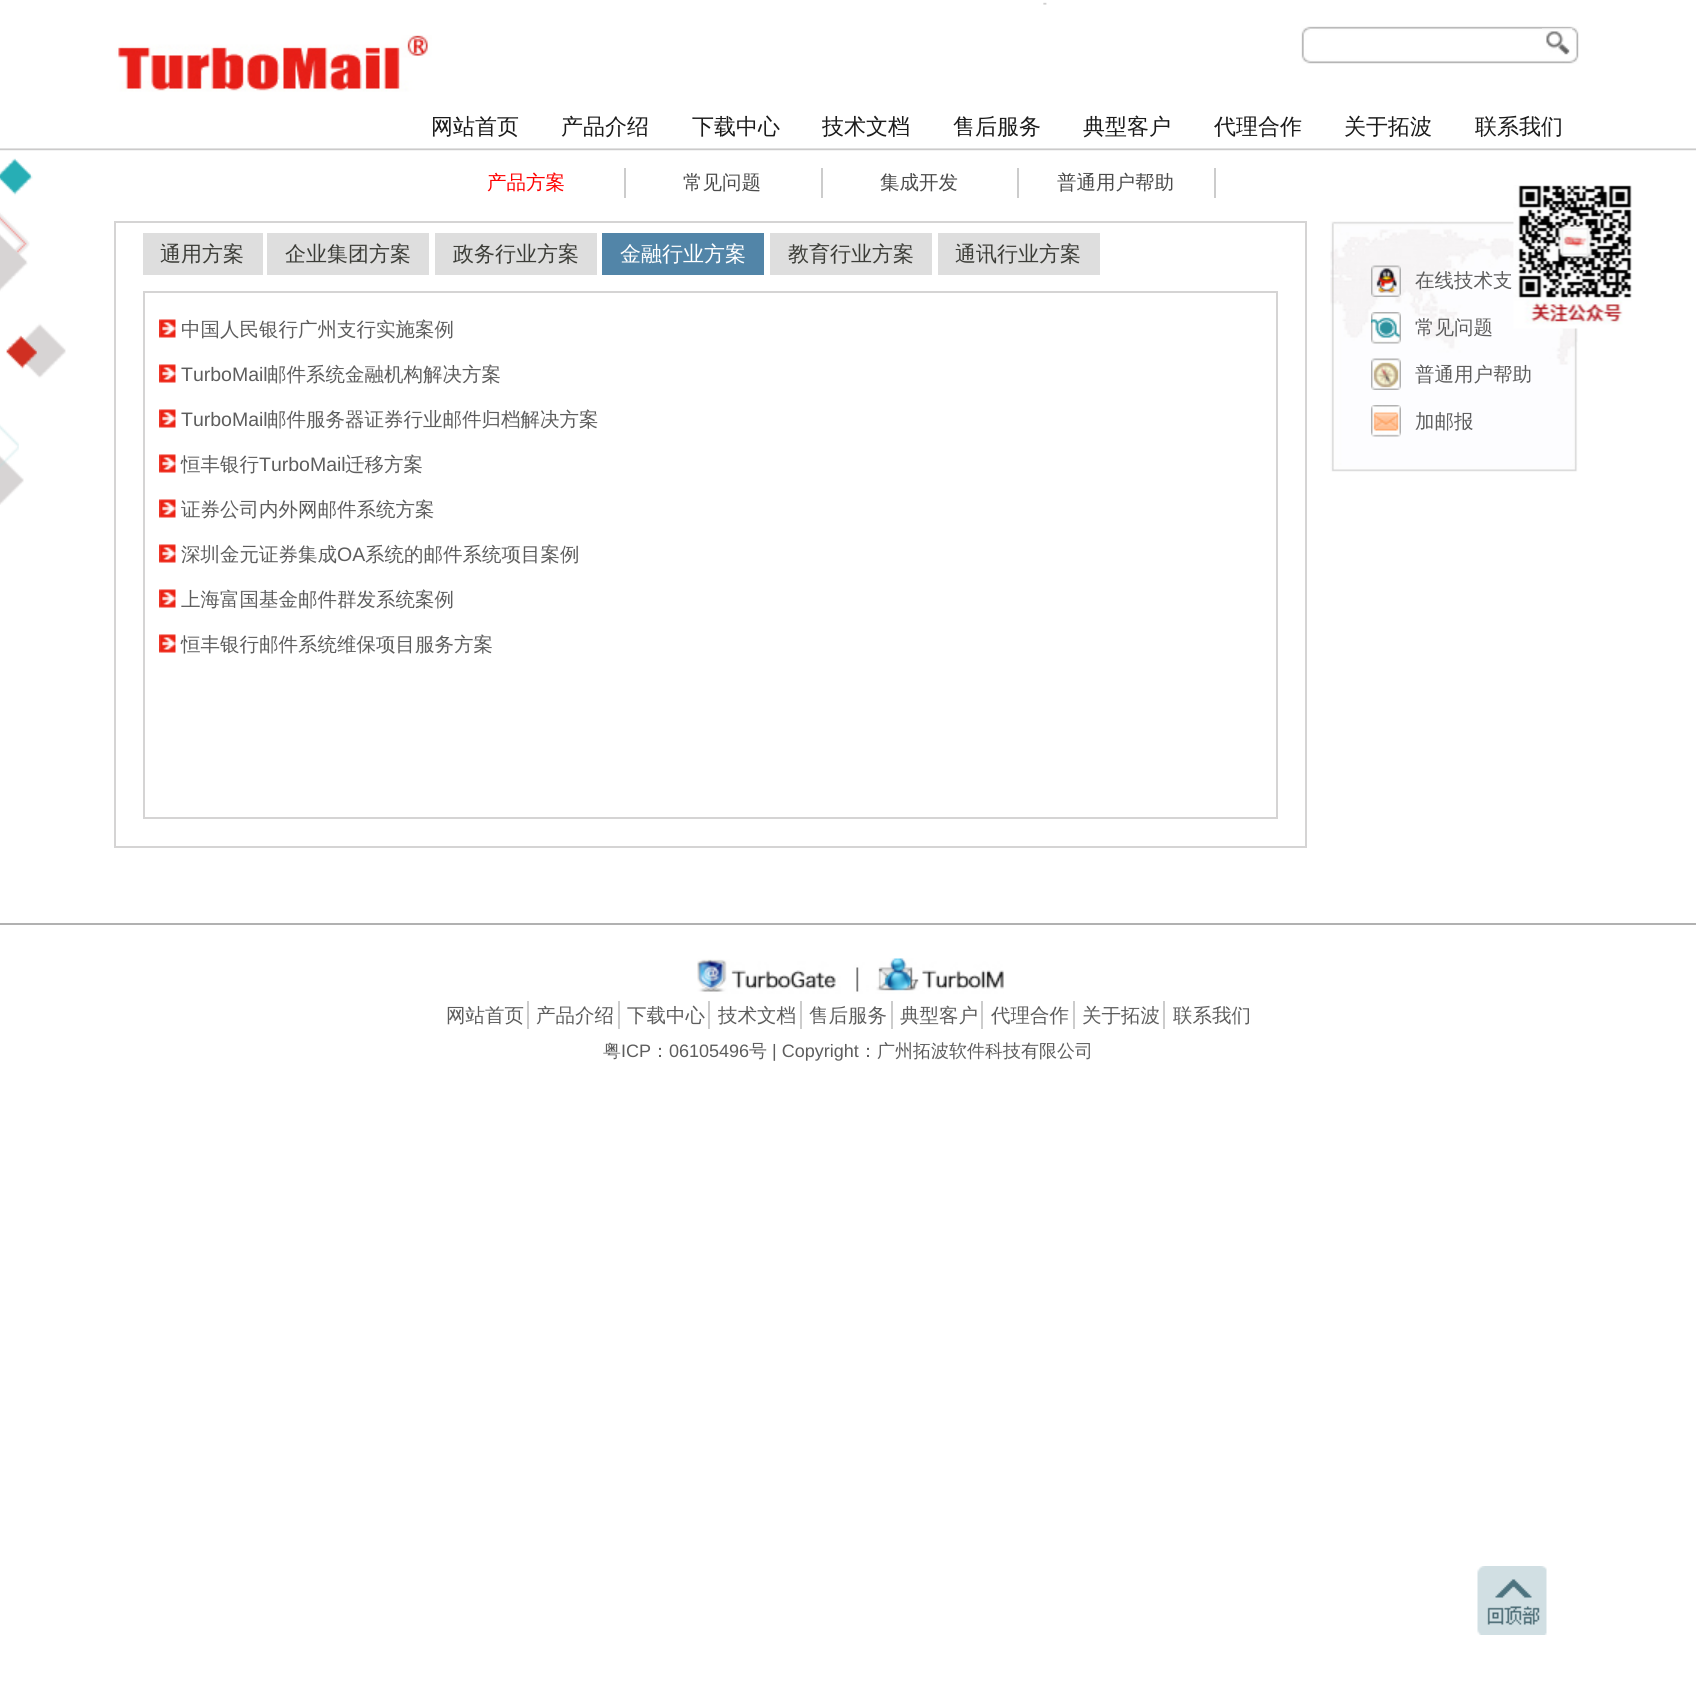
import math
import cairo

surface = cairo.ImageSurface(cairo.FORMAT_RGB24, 1696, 1694)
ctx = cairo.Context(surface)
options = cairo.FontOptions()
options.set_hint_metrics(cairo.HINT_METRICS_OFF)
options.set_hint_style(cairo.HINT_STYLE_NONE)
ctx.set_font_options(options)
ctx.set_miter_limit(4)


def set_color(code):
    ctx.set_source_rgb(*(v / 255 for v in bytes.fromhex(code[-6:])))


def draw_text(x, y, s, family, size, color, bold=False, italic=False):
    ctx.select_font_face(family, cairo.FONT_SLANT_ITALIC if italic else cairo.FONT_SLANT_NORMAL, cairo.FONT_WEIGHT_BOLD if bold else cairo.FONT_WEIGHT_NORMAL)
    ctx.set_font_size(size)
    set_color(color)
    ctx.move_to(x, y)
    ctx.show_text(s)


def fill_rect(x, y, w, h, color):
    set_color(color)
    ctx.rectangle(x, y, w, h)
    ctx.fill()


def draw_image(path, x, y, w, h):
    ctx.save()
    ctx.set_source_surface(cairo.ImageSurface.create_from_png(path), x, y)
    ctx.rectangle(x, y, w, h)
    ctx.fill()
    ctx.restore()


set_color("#ffffff")
ctx.paint()
draw_image("assets/img1.png", 0, 2, 1696, 503)
draw_image("assets/img2.png", 116, 35, 316, 57)
draw_image("assets/img3.png", 1301, 26, 278, 38)
fill_rect(1310, 29, 9, 1, "#ffffff")
draw_image("assets/img4.png", 1542, 28, 30, 27)
draw_text(431, 134, "网站首页", "WenQuanYi Zen Hei Medium", 22, "#1b1b1b")
draw_text(561, 134, "产品介绍", "WenQuanYi Zen Hei Medium", 22, "#1b1b1b")
draw_text(692, 134, "下载中心", "WenQuanYi Zen Hei Medium", 22, "#1b1b1b")
draw_text(822, 134, "技术文档", "WenQuanYi Zen Hei Medium", 22, "#1b1b1b")
draw_text(953, 134, "售后服务", "WenQuanYi Zen Hei Medium", 22, "#1b1b1b")
draw_text(1083, 134, "典型客户", "WenQuanYi Zen Hei Medium", 22, "#1b1b1b")
draw_text(1214, 134, "代理合作", "WenQuanYi Zen Hei Medium", 22, "#1b1b1b")
draw_text(1344, 134, "关于拓波", "WenQuanYi Zen Hei Medium", 22, "#1b1b1b")
draw_text(1475, 134, "联系我们", "WenQuanYi Zen Hei Medium", 22, "#1b1b1b")
fill_rect(624, 168, 2, 30, "#cccccc")
draw_text(487, 189, "产品方案", "WenQuanYi Zen Hei Medium", 19.5, "#ff0000")
fill_rect(821, 168, 2, 30, "#cccccc")
draw_text(683, 189, "常见问题", "WenQuanYi Zen Hei Medium", 19.5, "#4b4b4b")
fill_rect(1017, 168, 2, 30, "#cccccc")
draw_text(880, 189, "集成开发", "WenQuanYi Zen Hei Medium", 19.5, "#4b4b4b")
fill_rect(1214, 168, 2, 30, "#cccccc")
draw_text(1057, 189, "普通用户帮助", "WenQuanYi Zen Hei Medium", 19.5, "#4b4b4b")
ctx.rectangle(115, 222, 1191, 625)
set_color("#d5d4d4")
ctx.stroke()
fill_rect(143, 233, 120, 42, "#dedede")
draw_text(160, 261, "通用方案", "WenQuanYi Zen Hei Medium", 21, "#3c3d38")
fill_rect(267, 233, 162, 42, "#dedede")
draw_text(285, 261, "企业集团方案", "WenQuanYi Zen Hei Medium", 21, "#3c3d38")
fill_rect(435, 233, 162, 42, "#dedede")
draw_text(453, 261, "政务行业方案", "WenQuanYi Zen Hei Medium", 21, "#3c3d38")
fill_rect(602, 233, 162, 42, "#5285a8")
draw_text(620, 261, "金融行业方案", "WenQuanYi Zen Hei Medium", 21, "#ffffff")
fill_rect(770, 233, 162, 42, "#dedede")
draw_text(788, 261, "教育行业方案", "WenQuanYi Zen Hei Medium", 21, "#3c3d38")
fill_rect(938, 233, 162, 42, "#dedede")
draw_text(955, 261, "通讯行业方案", "WenQuanYi Zen Hei Medium", 21, "#3c3d38")
ctx.rectangle(144, 292, 1133, 526)
set_color("#d5d4d4")
ctx.stroke()
draw_image("assets/img5.png", 159, 319, 17, 19)
draw_text(181, 336, "中国人民银行广州支行实施案例", "WenQuanYi Zen Hei Medium", 19.5, "#5d5d5d")
draw_image("assets/img5.png", 159, 364, 17, 19)
draw_text(181, 381, "TurboMail", "Liberation Sans", 19.5, "#5d5d5d")
draw_text(267, 381, "邮件系统金融机构解决方案", "WenQuanYi Zen Hei Medium", 19.5, "#5d5d5d")
draw_image("assets/img5.png", 159, 409, 17, 19)
draw_text(181, 426, "TurboMail", "Liberation Sans", 19.5, "#5d5d5d")
draw_text(267, 426, "邮件服务器证券行业邮件归档解决方案", "WenQuanYi Zen Hei Medium", 19.5, "#5d5d5d")
draw_image("assets/img5.png", 159, 454, 17, 19)
draw_text(181, 471, "恒丰银行", "WenQuanYi Zen Hei Medium", 19.5, "#5d5d5d")
draw_text(259, 471, "TurboMail", "Liberation Sans", 19.5, "#5d5d5d")
draw_text(345, 471, "迁移方案", "WenQuanYi Zen Hei Medium", 19.5, "#5d5d5d")
draw_image("assets/img5.png", 159, 499, 17, 19)
draw_text(181, 516, "证券公司内外网邮件系统方案", "WenQuanYi Zen Hei Medium", 19.5, "#5d5d5d")
draw_image("assets/img5.png", 159, 544, 17, 19)
draw_text(181, 561, "深圳金元证券集成", "WenQuanYi Zen Hei Medium", 19.5, "#5d5d5d")
draw_text(337, 561, "OA", "Liberation Sans", 19.5, "#5d5d5d")
draw_text(365, 561, "系统的邮件系统项目案例", "WenQuanYi Zen Hei Medium", 19.5, "#5d5d5d")
draw_image("assets/img5.png", 159, 589, 17, 19)
draw_text(181, 606, "上海富国基金邮件群发系统案例", "WenQuanYi Zen Hei Medium", 19.5, "#5d5d5d")
draw_image("assets/img5.png", 159, 634, 17, 19)
draw_text(181, 651, "恒丰银行邮件系统维保项目服务方案", "WenQuanYi Zen Hei Medium", 19.5, "#5d5d5d")
draw_image("assets/img6.png", 1330, 221, 248, 251)
draw_image("assets/img7.png", 1371, 265, 30, 32)
draw_image("assets/img8.png", 1371, 312, 30, 32)
draw_image("assets/img9.png", 1371, 358, 30, 32)
draw_image("assets/img10.png", 1371, 405, 30, 32)
draw_text(1415, 287, "在线技术支", "WenQuanYi Zen Hei Medium", 19.5, "#5d5d5d")
draw_text(1415, 334, "常见问题", "WenQuanYi Zen Hei Medium", 19.5, "#5d5d5d")
draw_text(1415, 381, "普通用户帮助", "WenQuanYi Zen Hei Medium", 19.5, "#5d5d5d")
draw_text(1415, 428, "加邮报", "WenQuanYi Zen Hei Medium", 19.5, "#5d5d5d")
draw_image("assets/img11.png", 1513, 185, 119, 144)
fill_rect(0, 923, 1696, 2, "#b1b1b1")
draw_image("assets/img12.png", 697, 958, 307, 36)
draw_text(446, 1022, "网站首页", "WenQuanYi Zen Hei Medium", 19.5, "#5d5d5d")
fill_rect(527, 1001, 2, 28, "#cccccc")
draw_text(536, 1022, "产品介绍", "WenQuanYi Zen Hei Medium", 19.5, "#5d5d5d")
fill_rect(618, 1001, 2, 28, "#cccccc")
draw_text(627, 1022, "下载中心", "WenQuanYi Zen Hei Medium", 19.5, "#5d5d5d")
fill_rect(708, 1001, 2, 28, "#cccccc")
draw_text(718, 1022, "技术文档", "WenQuanYi Zen Hei Medium", 19.5, "#5d5d5d")
fill_rect(800, 1001, 2, 28, "#cccccc")
draw_text(809, 1022, "售后服务", "WenQuanYi Zen Hei Medium", 19.5, "#5d5d5d")
fill_rect(891, 1001, 2, 28, "#cccccc")
draw_text(900, 1022, "典型客户", "WenQuanYi Zen Hei Medium", 19.5, "#5d5d5d")
fill_rect(981, 1001, 2, 28, "#cccccc")
draw_text(991, 1022, "代理合作", "WenQuanYi Zen Hei Medium", 19.5, "#5d5d5d")
fill_rect(1073, 1001, 2, 28, "#cccccc")
draw_text(1082, 1022, "关于拓波", "WenQuanYi Zen Hei Medium", 19.5, "#5d5d5d")
fill_rect(1163, 1001, 2, 28, "#cccccc")
draw_text(1173, 1022, "联系我们", "WenQuanYi Zen Hei Medium", 19.5, "#5d5d5d")
draw_text(603, 1057, "粤", "WenQuanYi Zen Hei Medium", 18, "#5d5d5d")
draw_text(621, 1057, "ICP", "Liberation Sans", 18, "#5d5d5d")
draw_text(651, 1057, "：", "WenQuanYi Zen Hei Medium", 18, "#5d5d5d")
draw_text(669, 1057, "06105496", "Liberation Sans", 18, "#5d5d5d")
draw_text(749, 1057, "号", "WenQuanYi Zen Hei Medium", 18, "#5d5d5d")
draw_text(772, 1057, "| Copyright", "Liberation Sans", 18, "#5d5d5d")
draw_text(859, 1057, "：广州拓波软件科技有限公司", "WenQuanYi Zen Hei Medium", 18, "#5d5d5d")
draw_image("assets/img13.png", 1477, 1566, 70, 69)
surface.write_to_png("output.png")
